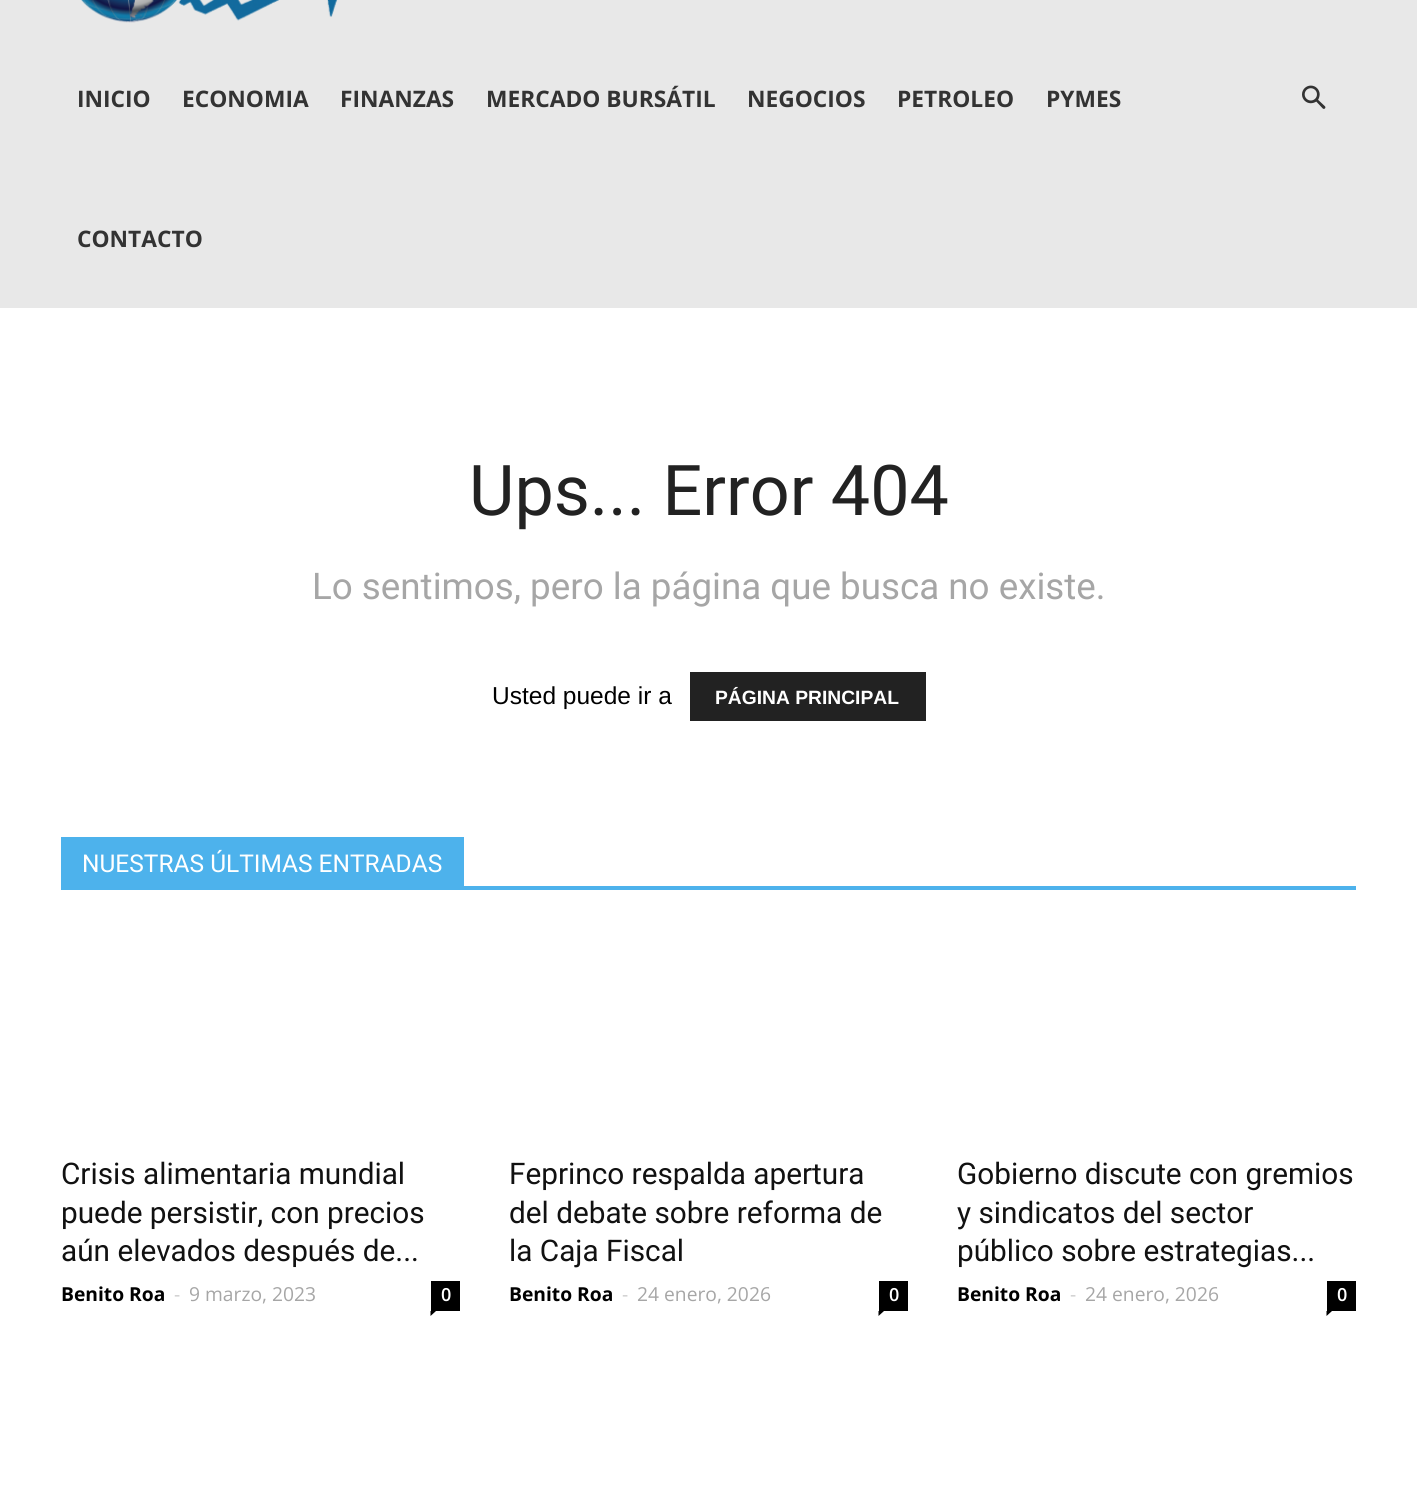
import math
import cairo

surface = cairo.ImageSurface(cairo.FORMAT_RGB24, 1417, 1491)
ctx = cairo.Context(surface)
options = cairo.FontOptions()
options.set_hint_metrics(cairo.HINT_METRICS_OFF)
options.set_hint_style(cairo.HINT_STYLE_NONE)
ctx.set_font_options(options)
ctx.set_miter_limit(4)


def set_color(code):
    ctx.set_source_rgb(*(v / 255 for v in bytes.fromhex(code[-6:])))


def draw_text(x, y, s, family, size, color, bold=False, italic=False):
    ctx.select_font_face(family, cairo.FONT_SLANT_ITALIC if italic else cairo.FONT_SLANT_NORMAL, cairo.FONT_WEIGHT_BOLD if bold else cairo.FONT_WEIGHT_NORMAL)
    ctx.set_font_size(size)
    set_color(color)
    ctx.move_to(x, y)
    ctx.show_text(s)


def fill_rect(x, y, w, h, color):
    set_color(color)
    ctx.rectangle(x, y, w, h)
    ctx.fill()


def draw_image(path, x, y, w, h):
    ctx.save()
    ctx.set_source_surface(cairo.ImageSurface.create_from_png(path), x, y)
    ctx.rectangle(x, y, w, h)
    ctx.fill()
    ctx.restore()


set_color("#ffffff")
ctx.paint()
fill_rect(0, 0, 1417, 308, "#e8e8e8")
draw_image("assets/img1.png", 81, 0, 257, 23)
draw_text(77, 107, "INICIO", "Open Sans", 22.75, "#333333", bold=True)
draw_text(182, 107, "ECONOMIA", "Open Sans", 22.75, "#333333", bold=True)
draw_text(340, 107, "FINANZAS", "Open Sans", 22.75, "#333333", bold=True)
draw_text(486, 107, "MERCADO BURSÁTIL", "Open Sans", 22.75, "#333333", bold=True)
draw_text(747, 107, "NEGOCIOS", "Open Sans", 22.75, "#333333", bold=True)
draw_text(897, 107, "PETROLEO", "Open Sans", 22.75, "#333333", bold=True)
draw_text(1046, 107, "PYMES", "Open Sans", 22.75, "#333333", bold=True)
draw_text(77, 247, "CONTACTO", "Open Sans", 22.75, "#333333", bold=True)
draw_image("assets/img2.png", 1302, 85, 24, 24)
draw_text(469, 515, "Ups... Error 404", "Roboto", 70, "#222222")
draw_text(312, 599, "Lo sentimos, pero la página que busca no existe.", "Roboto", 36.75, "#a6a6a6")
draw_text(492, 704, "Usted puede ir a", "Liberation Sans", 24.5, "#000000")
fill_rect(690, 672, 236, 49, "#222222")
draw_text(715, 704, "PÁGINA PRINCIPAL", "Liberation Sans", 19.25, "#ffffff", bold=True)
fill_rect(61, 886, 1295, 4, "#4db2ec")
fill_rect(61, 837, 403, 49, "#4db2ec")
draw_text(82, 872, "NUESTRAS ÚLTIMAS ENTRADAS", "Roboto", 24.5, "#ffffff")
draw_text(61, 1184, "Crisis alimentaria mundial", "Roboto", 29.75, "#111111")
draw_text(61, 1223, "puede persistir, con precios", "Roboto", 29.75, "#111111")
draw_text(61, 1261, "aún elevados después de...", "Roboto", 29.75, "#111111")
draw_text(61, 1301, "Benito Roa", "Open Sans", 19.25, "#000000", bold=True)
draw_text(174, 1301, "-", "Open Sans", 19.25, "#cccccc")
draw_text(189, 1301, "9 marzo, 2023", "Open Sans", 19.25, "#a6a6a6")
fill_rect(431, 1281, 29, 30, "#000000")
draw_text(441, 1301, "0", "Open Sans SemiBold", 18, "#ffffff")
set_color("#000000")
ctx.new_path()
ctx.move_to(430.5, 1311)
ctx.line_to(436, 1311)
ctx.line_to(430.5, 1316)
ctx.close_path()
ctx.fill()
draw_text(509, 1184, "Feprinco respalda apertura", "Roboto", 29.75, "#111111")
draw_text(509, 1223, "del debate sobre reforma de", "Roboto", 29.75, "#111111")
draw_text(509, 1261, "la Caja Fiscal", "Roboto", 29.75, "#111111")
draw_text(509, 1301, "Benito Roa", "Open Sans", 19.25, "#000000", bold=True)
draw_text(622, 1301, "-", "Open Sans", 19.25, "#cccccc")
draw_text(637, 1301, "24 enero, 2026", "Open Sans", 19.25, "#a6a6a6")
fill_rect(879, 1281, 29, 30, "#000000")
draw_text(889, 1301, "0", "Open Sans SemiBold", 18, "#ffffff")
set_color("#000000")
ctx.new_path()
ctx.move_to(878.5, 1311)
ctx.line_to(884, 1311)
ctx.line_to(878.5, 1316)
ctx.close_path()
ctx.fill()
draw_text(957, 1184, "Gobierno discute con gremios", "Roboto", 29.75, "#111111")
draw_text(957, 1223, "y sindicatos del sector", "Roboto", 29.75, "#111111")
draw_text(957, 1261, "público sobre estrategias...", "Roboto", 29.75, "#111111")
draw_text(957, 1301, "Benito Roa", "Open Sans", 19.25, "#000000", bold=True)
draw_text(1070, 1301, "-", "Open Sans", 19.25, "#cccccc")
draw_text(1085, 1301, "24 enero, 2026", "Open Sans", 19.25, "#a6a6a6")
fill_rect(1327, 1281, 29, 30, "#000000")
draw_text(1337, 1301, "0", "Open Sans SemiBold", 18, "#ffffff")
set_color("#000000")
ctx.new_path()
ctx.move_to(1326.5, 1311)
ctx.line_to(1332, 1311)
ctx.line_to(1326.5, 1316)
ctx.close_path()
ctx.fill()
surface.write_to_png("output.png")
